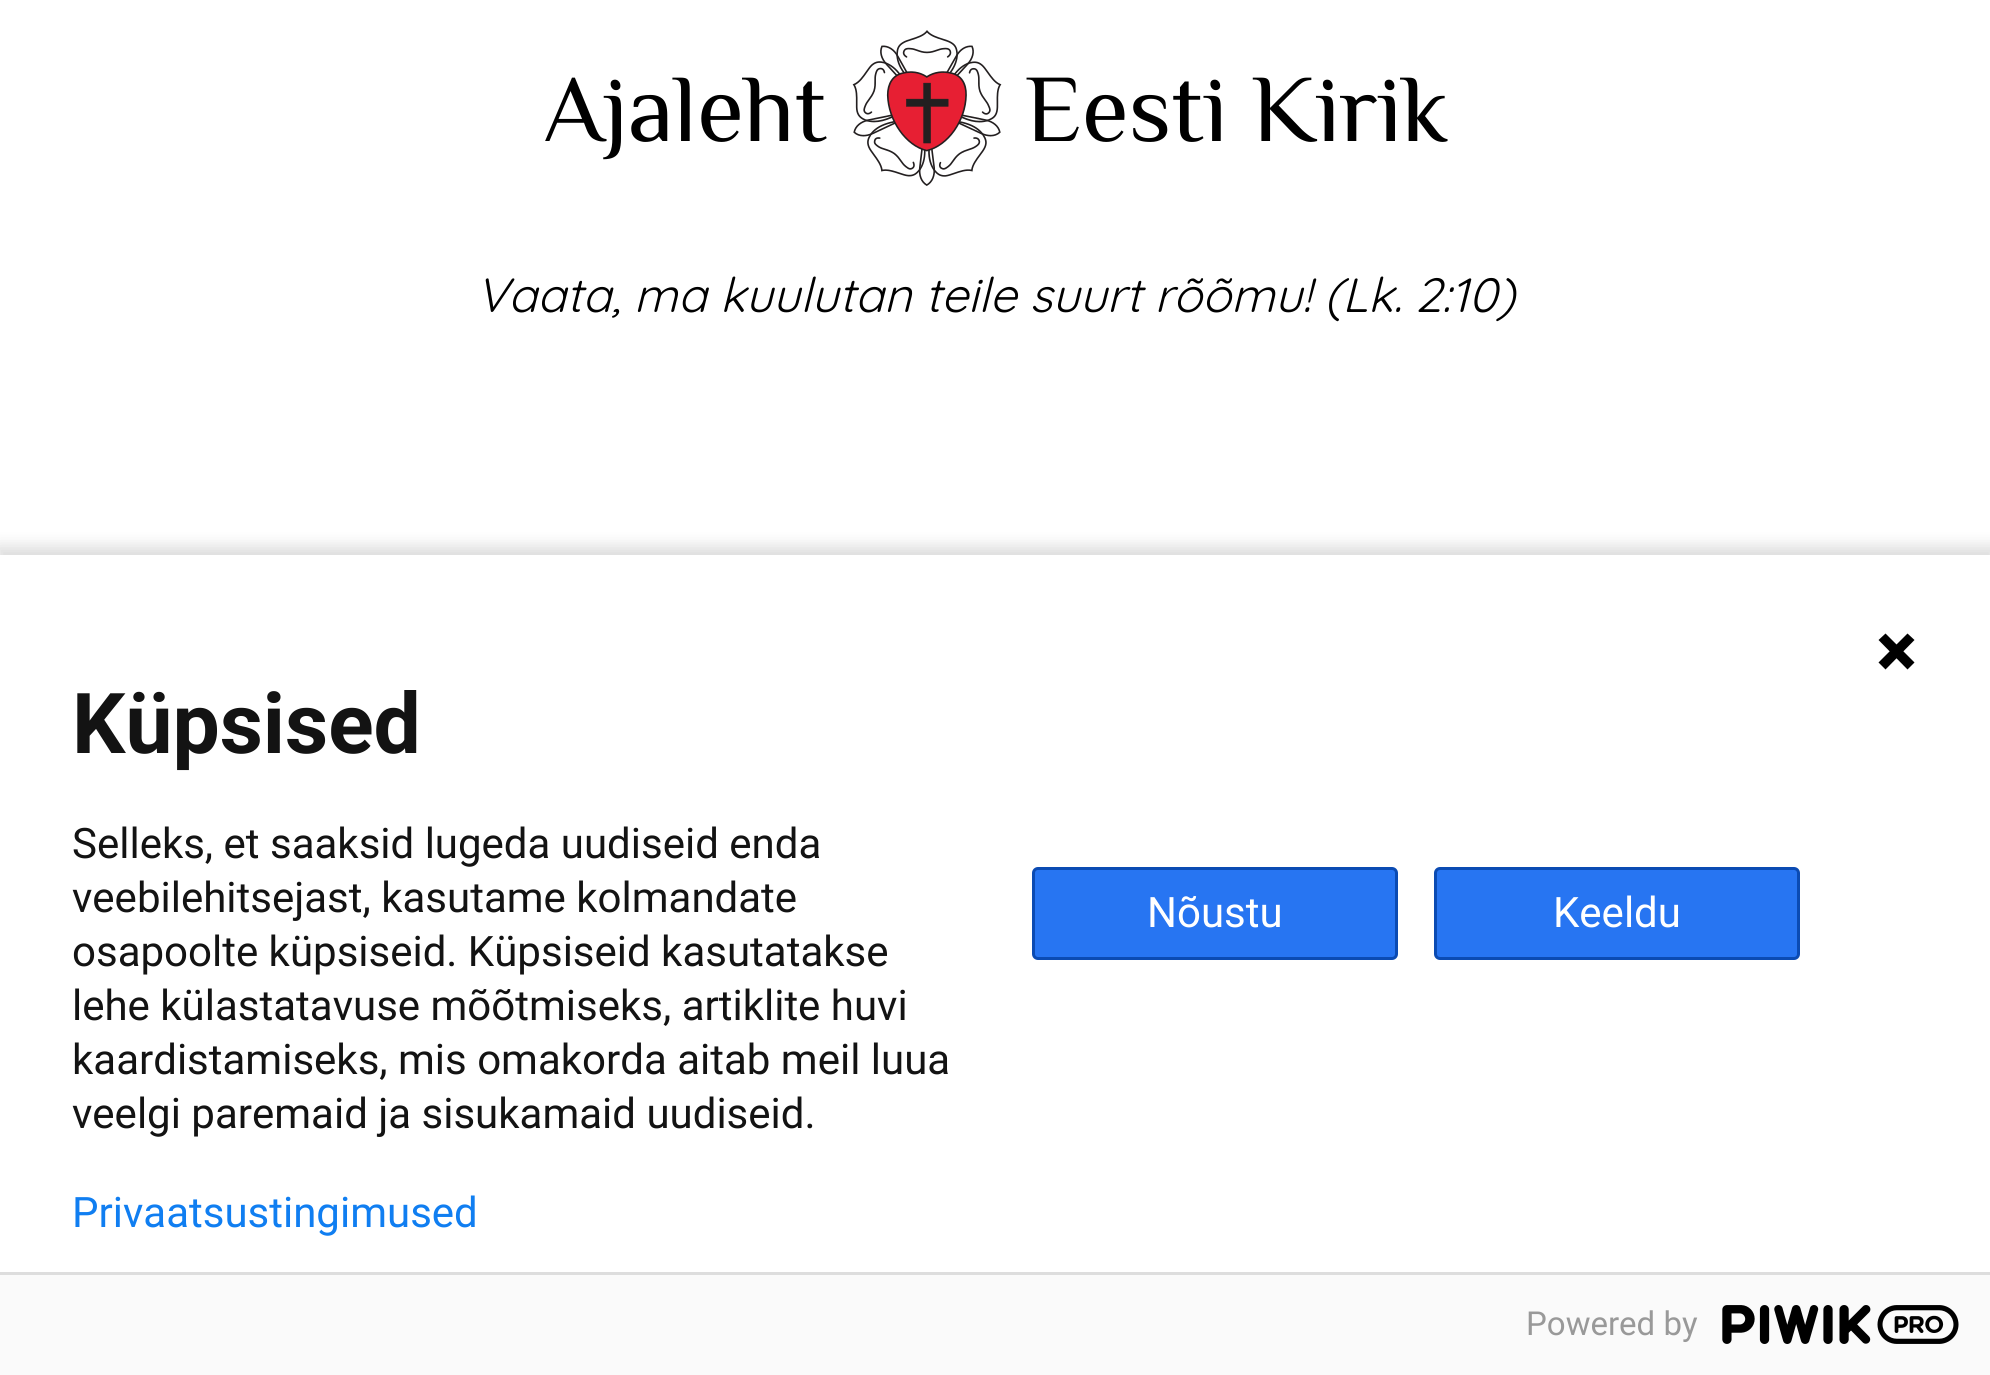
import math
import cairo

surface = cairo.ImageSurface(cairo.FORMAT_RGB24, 1990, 1375)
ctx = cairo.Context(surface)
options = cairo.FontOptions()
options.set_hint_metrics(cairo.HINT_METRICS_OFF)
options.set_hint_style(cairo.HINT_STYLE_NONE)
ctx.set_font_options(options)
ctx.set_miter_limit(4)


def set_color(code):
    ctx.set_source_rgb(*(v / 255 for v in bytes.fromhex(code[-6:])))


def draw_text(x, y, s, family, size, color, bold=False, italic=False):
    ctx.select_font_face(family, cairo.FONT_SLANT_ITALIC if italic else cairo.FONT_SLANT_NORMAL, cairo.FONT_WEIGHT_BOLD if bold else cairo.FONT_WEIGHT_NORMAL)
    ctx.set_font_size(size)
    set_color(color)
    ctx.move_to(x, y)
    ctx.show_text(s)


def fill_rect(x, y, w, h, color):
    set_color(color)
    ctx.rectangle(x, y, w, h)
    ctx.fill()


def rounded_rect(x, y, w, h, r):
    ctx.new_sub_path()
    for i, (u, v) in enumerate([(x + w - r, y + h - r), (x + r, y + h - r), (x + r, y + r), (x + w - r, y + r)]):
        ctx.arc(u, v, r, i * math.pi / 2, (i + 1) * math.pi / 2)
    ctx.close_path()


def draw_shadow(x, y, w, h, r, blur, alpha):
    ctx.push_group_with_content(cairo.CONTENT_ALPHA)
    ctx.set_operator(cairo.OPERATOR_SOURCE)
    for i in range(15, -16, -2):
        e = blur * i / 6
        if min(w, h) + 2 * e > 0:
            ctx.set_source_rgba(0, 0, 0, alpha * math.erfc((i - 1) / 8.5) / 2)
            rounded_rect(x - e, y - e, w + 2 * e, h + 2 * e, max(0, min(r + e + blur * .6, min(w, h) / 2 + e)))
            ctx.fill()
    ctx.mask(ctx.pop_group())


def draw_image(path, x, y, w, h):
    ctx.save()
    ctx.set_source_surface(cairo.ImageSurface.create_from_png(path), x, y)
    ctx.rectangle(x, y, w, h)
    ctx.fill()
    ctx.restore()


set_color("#ffffff")
ctx.paint()
draw_text(543, 141, "Ajaleht", "Philosopher", 96, "#000000")
draw_image("assets/img1.png", 852, 30, 150, 156)
draw_text(1025, 141, "Eesti Kirik", "Philosopher", 96, "#000000")
draw_text(476, 312, "Vaata, ma kuulutan teile suurt rõõmu! (Lk. 2:10)", "Quicksand", 48, "#000000", italic=True)
set_color("#000000")
draw_shadow(-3, 546, 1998, 828, 0, 7.5, 0.14)
fill_rect(0, 555, 1990, 717, "#ffffff")
set_color("#000000")
ctx.new_path()
ctx.move_to(1878.5, 640)
ctx.line_to(1885.5, 633.5)
ctx.line_to(1914.5, 662.5)
ctx.line_to(1907.5, 669.5)
ctx.line_to(1878.5, 640)
ctx.fill()
ctx.new_path()
ctx.move_to(1907.5, 633.5)
ctx.line_to(1914.5, 640)
ctx.line_to(1885.5, 669.5)
ctx.line_to(1878.5, 662.5)
ctx.line_to(1907.5, 633.5)
ctx.fill()
draw_text(72, 753, "Küpsised", "Roboto", 84, "#131313", bold=True)
draw_text(72, 858, "Selleks, et saaksid lugeda uudiseid enda", "Roboto", 42, "#131313")
draw_text(72, 912, "veebilehitsejast, kasutame kolmandate", "Roboto", 42, "#131313")
draw_text(72, 966, "osapoolte küpsiseid. Küpsiseid kasutatakse", "Roboto", 42, "#131313")
draw_text(72, 1020, "lehe külastatavuse mõõtmiseks, artiklite huvi", "Roboto", 42, "#131313")
draw_text(72, 1074, "kaardistamiseks, mis omakorda aitab meil luua", "Roboto", 42, "#131313")
draw_text(72, 1128, "veelgi paremaid ja sisukamaid uudiseid.", "Roboto", 42, "#131313")
draw_text(72, 1227, "Privaatsustingimused", "Roboto", 42, "#107ef1")
set_color("#2775f2")
rounded_rect(1033.5, 868.5, 363, 90, 4.5)
ctx.fill_preserve()
set_color("#0b4bb3")
ctx.set_line_width(3)
ctx.stroke()
draw_text(1147, 927, "Nõustu", "Roboto", 42, "#ffffff")
set_color("#2775f2")
rounded_rect(1435.5, 868.5, 363, 90, 4.5)
ctx.fill_preserve()
set_color("#0b4bb3")
ctx.stroke()
draw_text(1553, 927, "Keeldu", "Roboto", 42, "#ffffff")
fill_rect(0, 1275, 1990, 100, "#fafafa")
fill_rect(0, 1272, 1990, 3, "#dddddd")
draw_text(1526, 1335, "Powered by", "Roboto", 33, "#999999")
draw_image("assets/img2.png", 1722, 1305, 237, 39)
surface.write_to_png("output.png")
